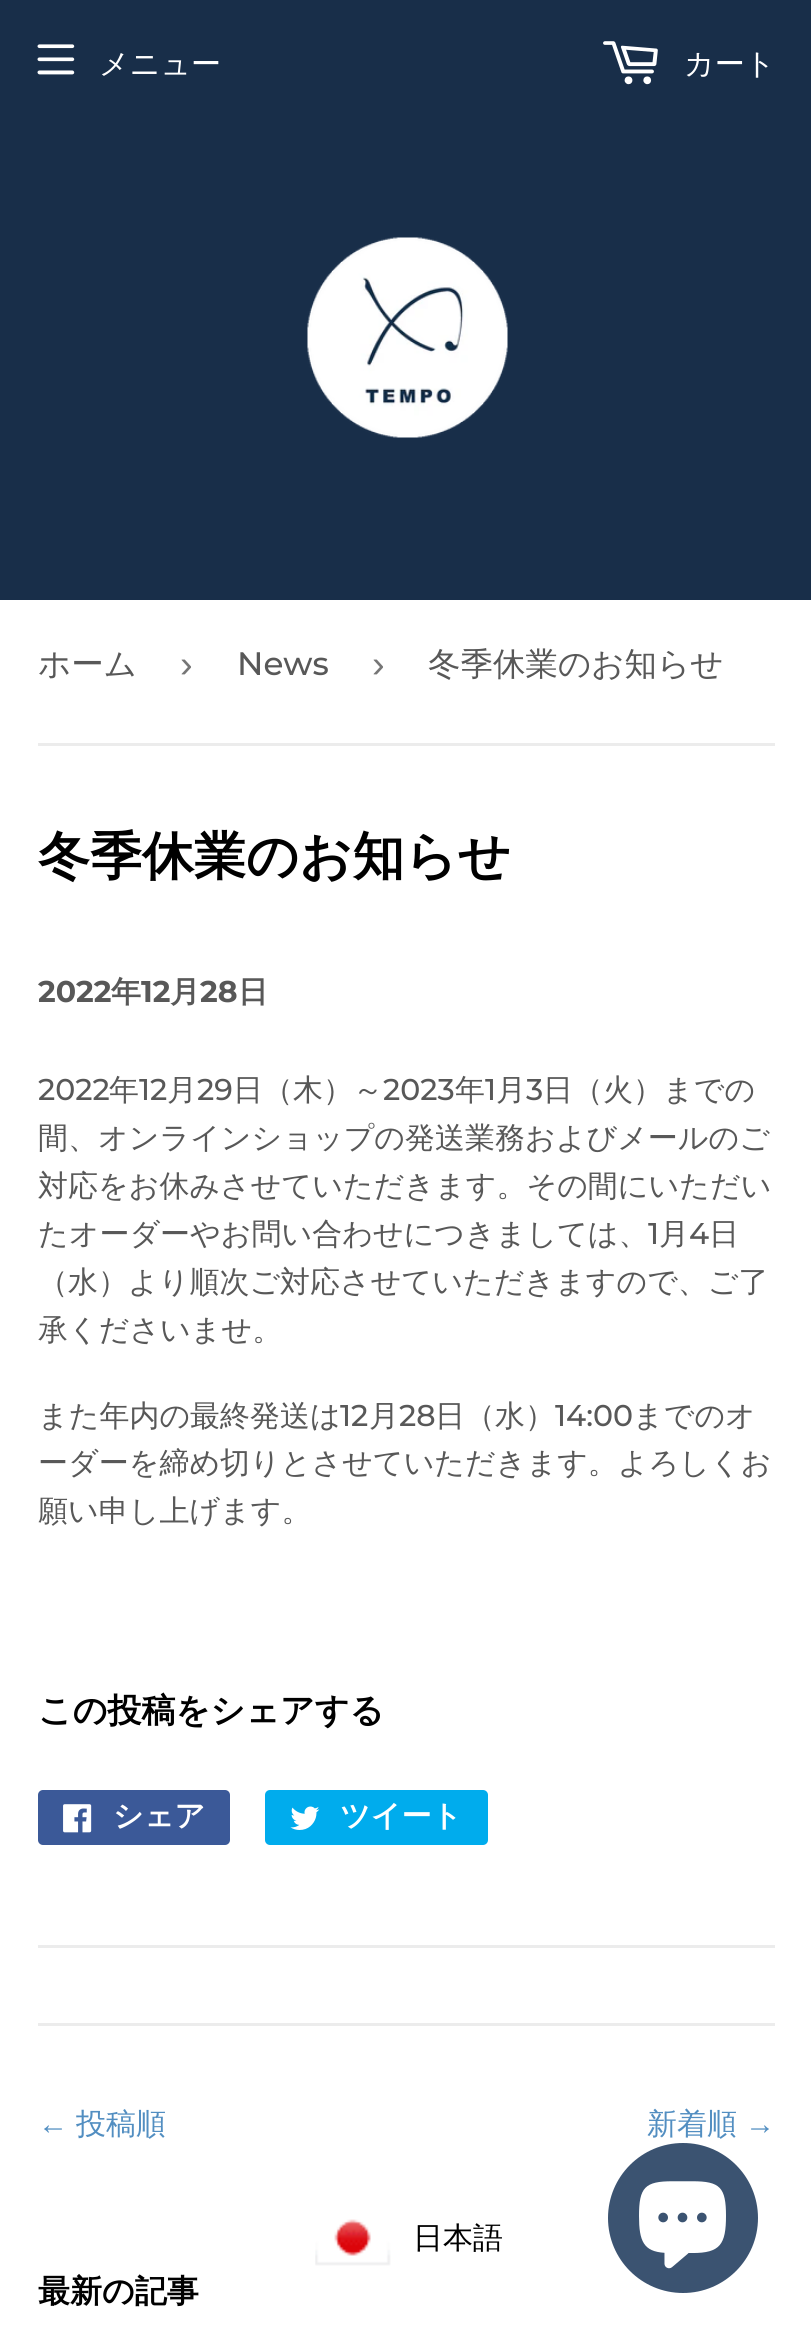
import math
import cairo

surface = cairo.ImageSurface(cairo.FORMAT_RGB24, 811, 2344)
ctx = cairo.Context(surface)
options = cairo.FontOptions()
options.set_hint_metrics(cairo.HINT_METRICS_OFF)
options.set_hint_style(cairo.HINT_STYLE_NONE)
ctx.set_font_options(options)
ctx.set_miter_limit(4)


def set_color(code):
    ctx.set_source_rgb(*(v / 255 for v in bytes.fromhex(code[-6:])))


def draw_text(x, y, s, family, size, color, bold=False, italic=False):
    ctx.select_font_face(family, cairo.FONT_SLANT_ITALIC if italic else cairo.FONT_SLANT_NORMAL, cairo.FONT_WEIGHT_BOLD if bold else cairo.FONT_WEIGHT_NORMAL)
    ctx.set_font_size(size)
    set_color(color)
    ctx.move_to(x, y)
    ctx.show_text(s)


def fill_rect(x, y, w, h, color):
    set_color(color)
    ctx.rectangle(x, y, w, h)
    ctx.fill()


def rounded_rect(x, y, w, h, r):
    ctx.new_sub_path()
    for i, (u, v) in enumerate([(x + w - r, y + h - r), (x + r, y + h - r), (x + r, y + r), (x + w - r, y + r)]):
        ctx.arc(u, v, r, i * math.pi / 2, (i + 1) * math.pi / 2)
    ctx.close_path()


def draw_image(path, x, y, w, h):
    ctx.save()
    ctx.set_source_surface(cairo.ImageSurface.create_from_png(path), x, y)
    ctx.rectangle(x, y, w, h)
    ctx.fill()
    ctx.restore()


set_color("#ffffff")
ctx.paint()
fill_rect(0, 0, 811, 600, "#182e49")
draw_image("assets/img1.png", 307, 237, 201, 201)
draw_image("assets/img2.png", 37, 44, 38, 31)
draw_text(99, 74, "メニュー", "WenQuanYi Zen Hei Medium", 30, "#ffffff")
draw_image("assets/img3.png", 603, 41, 55, 44)
draw_text(684, 74, "カート", "WenQuanYi Zen Hei Medium", 30, "#ffffff")
fill_rect(38, 743, 737, 3, "#ececec")
draw_text(38, 675, "ホーム", "WenQuanYi Zen Hei Medium", 32.5, "#585858")
draw_text(180, 677, "›", "Liberation Sans", 38, "#767676")
draw_text(237, 675, "News", "Montserrat Medium", 32.5, "#585858")
draw_text(372, 677, "›", "Liberation Sans", 38, "#767676")
draw_text(428, 675, "冬季休業のお知らせ", "WenQuanYi Zen Hei Medium", 32.5, "#585858")
draw_text(38, 874, "冬季休業のお知らせ", "WenQuanYi Zen Hei", 52, "#000000", bold=True)
draw_text(38, 1002, "2022", "Montserrat", 30, "#585858", bold=True)
draw_text(111, 1002, "年", "WenQuanYi Zen Hei", 30, "#585858", bold=True)
draw_text(141, 1002, "12", "Montserrat", 30, "#585858", bold=True)
draw_text(170, 1002, "月", "WenQuanYi Zen Hei", 30, "#585858", bold=True)
draw_text(200, 1002, "28", "Montserrat", 30, "#585858", bold=True)
draw_text(238, 1002, "日", "WenQuanYi Zen Hei", 30, "#585858", bold=True)
draw_text(38, 1100, "2022", "Montserrat Medium", 30, "#585858")
draw_text(109, 1100, "年", "WenQuanYi Zen Hei Medium", 30, "#585858")
draw_text(139, 1100, "12", "Montserrat Medium", 30, "#585858")
draw_text(167, 1100, "月", "WenQuanYi Zen Hei Medium", 30, "#585858")
draw_text(197, 1100, "29", "Montserrat Medium", 30, "#585858")
draw_text(233, 1100, "日（木）～", "WenQuanYi Zen Hei Medium", 30, "#585858")
draw_text(383, 1100, "2023", "Montserrat Medium", 30, "#585858")
draw_text(455, 1100, "年", "WenQuanYi Zen Hei Medium", 30, "#585858")
draw_text(485, 1100, "1", "Montserrat Medium", 30, "#585858")
draw_text(496, 1100, "月", "WenQuanYi Zen Hei Medium", 30, "#585858")
draw_text(526, 1100, "3", "Montserrat Medium", 30, "#585858")
draw_text(543, 1100, "日（火）までの", "WenQuanYi Zen Hei Medium", 30, "#585858")
draw_text(38, 1148, "間、オンラインショップの発送業務およびメールのご", "WenQuanYi Zen Hei Medium", 30, "#585858")
draw_text(38, 1196, "対応をお休みさせていただきます。その間にいただい", "WenQuanYi Zen Hei Medium", 30, "#585858")
draw_text(38, 1244, "たオーダーやお問い合わせにつきましては、", "WenQuanYi Zen Hei Medium", 30, "#585858")
draw_text(648, 1244, "1", "Montserrat Medium", 30, "#585858")
draw_text(659, 1244, "月", "WenQuanYi Zen Hei Medium", 30, "#585858")
draw_text(689, 1244, "4", "Montserrat Medium", 30, "#585858")
draw_text(709, 1244, "日", "WenQuanYi Zen Hei Medium", 30, "#585858")
draw_text(38, 1292, "（水）より順次ご対応させていただきますので、ご了", "WenQuanYi Zen Hei Medium", 30, "#585858")
draw_text(38, 1340, "承くださいませ。", "WenQuanYi Zen Hei Medium", 30, "#585858")
draw_text(38, 1426, "また年内の最終発送は", "WenQuanYi Zen Hei Medium", 30, "#585858")
draw_text(340, 1426, "12", "Montserrat Medium", 30, "#585858")
draw_text(369, 1426, "月", "WenQuanYi Zen Hei Medium", 30, "#585858")
draw_text(399, 1426, "28", "Montserrat Medium", 30, "#585858")
draw_text(435, 1426, "日（水）", "WenQuanYi Zen Hei Medium", 30, "#585858")
draw_text(555, 1426, "14:00", "Montserrat Medium", 30, "#585858")
draw_text(633, 1426, "までのオ", "WenQuanYi Zen Hei Medium", 30, "#585858")
draw_text(38, 1473, "ーダーを締め切りとさせていただきます。よろしくお", "WenQuanYi Zen Hei Medium", 30, "#585858")
draw_text(38, 1521, "願い申し上げます。", "WenQuanYi Zen Hei Medium", 30, "#585858")
draw_text(38, 1722, "この投稿をシェアする", "WenQuanYi Zen Hei", 34, "#000000", bold=True)
set_color("#3b5998")
rounded_rect(38, 1790, 192, 55, 5)
ctx.fill()
draw_image("assets/img4.png", 63, 1804, 29, 29)
draw_text(113, 1826, "シェア", "WenQuanYi Zen Hei", 30, "#ffffff", bold=True)
set_color("#00aced")
rounded_rect(265, 1790, 223, 55, 5)
ctx.fill()
draw_image("assets/img5.png", 290, 1806, 30, 24)
draw_text(340, 1826, "ツイート", "WenQuanYi Zen Hei", 30, "#ffffff", bold=True)
fill_rect(38, 1945, 737, 3, "#ececec")
fill_rect(38, 2023, 737, 3, "#ececec")
draw_text(38, 2134, "←", "Liberation Sans", 30, "#528ec1")
draw_text(76, 2134, "投稿順", "WenQuanYi Zen Hei Medium", 30, "#528ec1")
draw_text(647, 2134, "新着順", "WenQuanYi Zen Hei Medium", 30, "#528ec1")
draw_text(745, 2134, "→", "Liberation Sans", 30, "#528ec1")
draw_text(38, 2302, "最新の記事", "WenQuanYi Zen Hei", 32, "#000000", bold=True)
draw_image("assets/img6.png", 315, 2219, 76, 47)
draw_text(413, 2248, "日本語", "WenQuanYi Zen Hei Medium", 30, "#000000")
set_color("#3b5371")
ctx.new_path()
ctx.arc(683, 2218, 75, 0, 2 * math.pi)
ctx.fill()
draw_image("assets/img7.png", 639, 2181, 87, 88)
surface.write_to_png("output.png")
